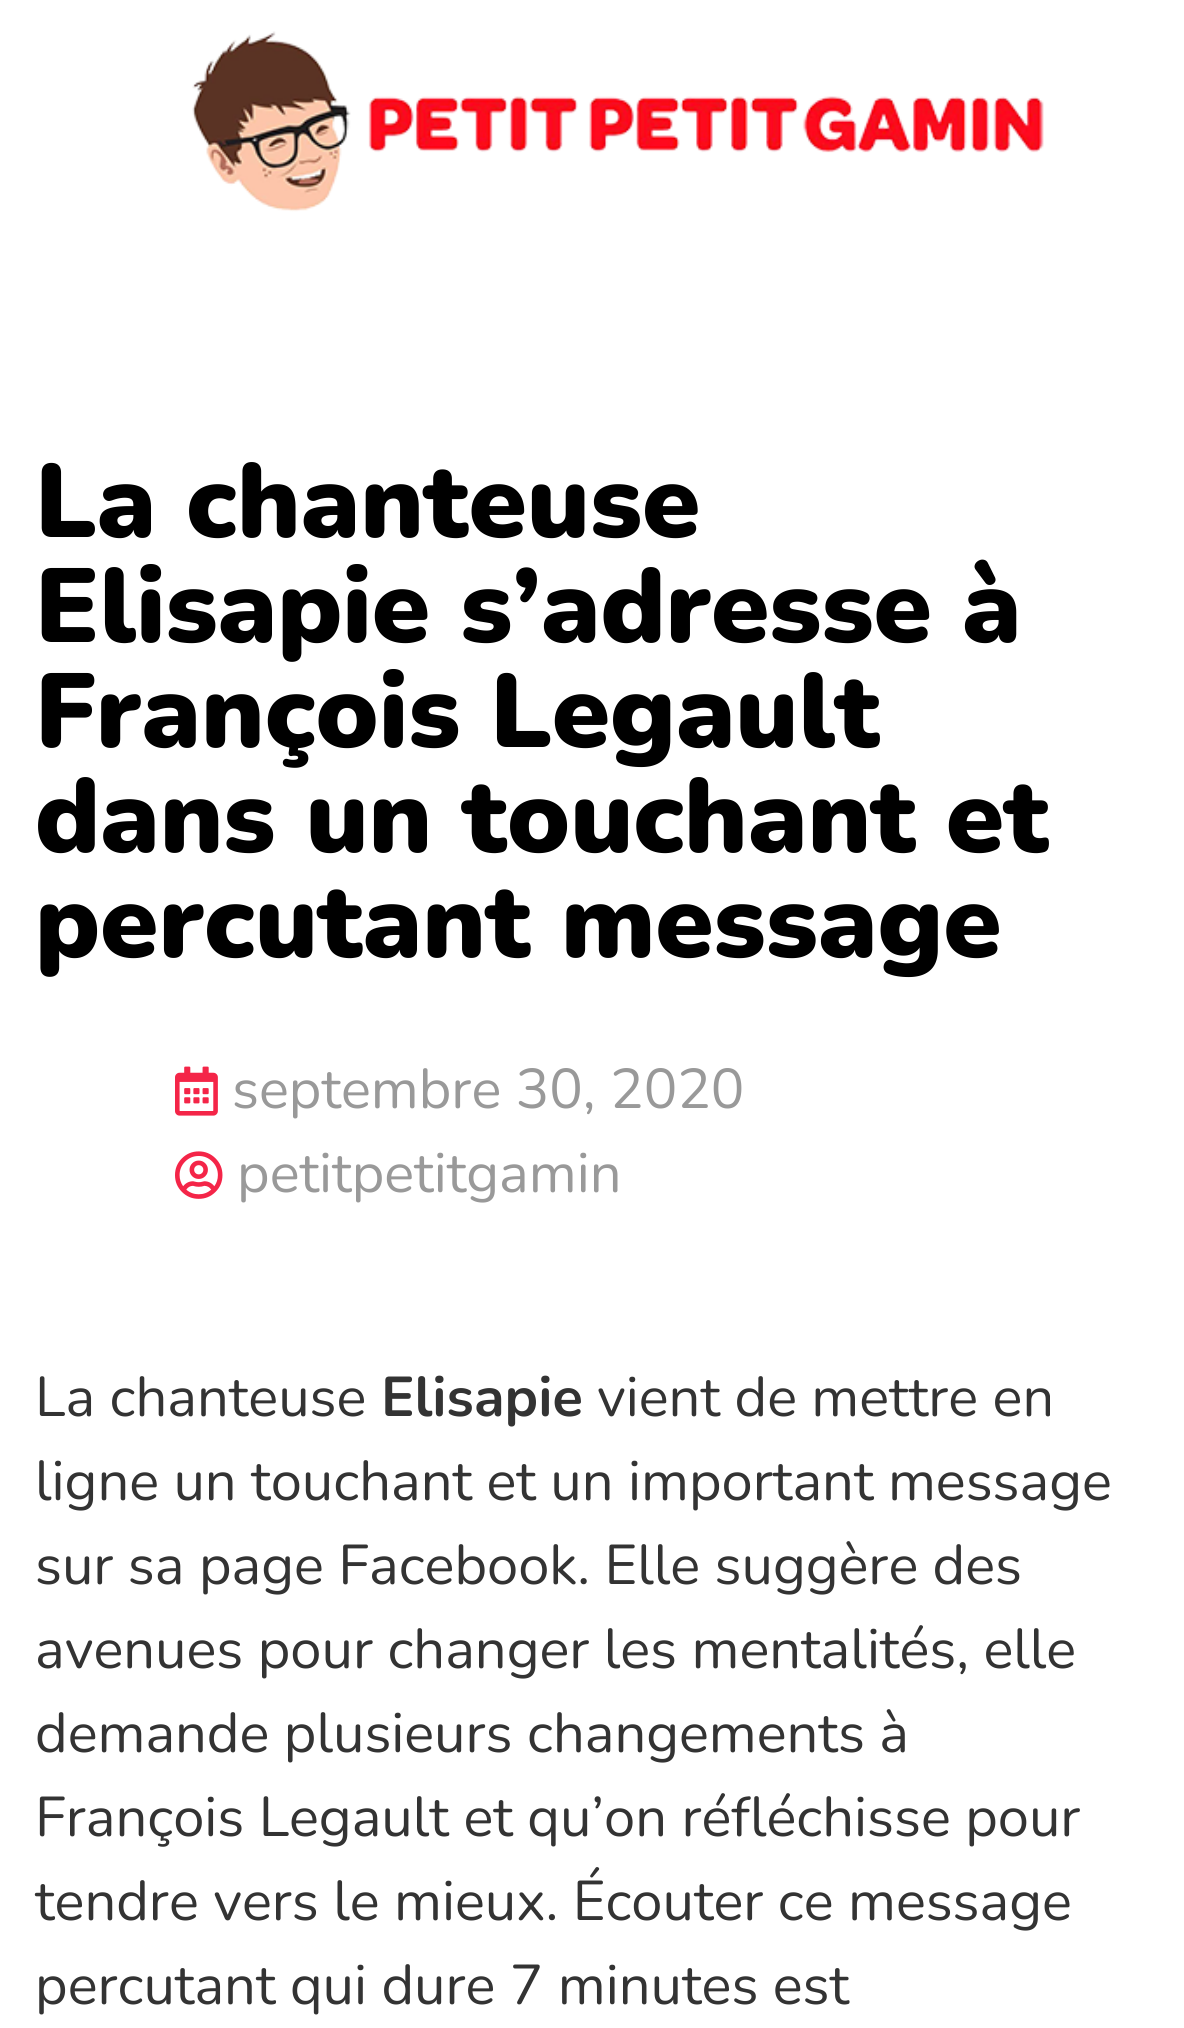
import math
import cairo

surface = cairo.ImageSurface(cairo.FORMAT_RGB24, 1184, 2028)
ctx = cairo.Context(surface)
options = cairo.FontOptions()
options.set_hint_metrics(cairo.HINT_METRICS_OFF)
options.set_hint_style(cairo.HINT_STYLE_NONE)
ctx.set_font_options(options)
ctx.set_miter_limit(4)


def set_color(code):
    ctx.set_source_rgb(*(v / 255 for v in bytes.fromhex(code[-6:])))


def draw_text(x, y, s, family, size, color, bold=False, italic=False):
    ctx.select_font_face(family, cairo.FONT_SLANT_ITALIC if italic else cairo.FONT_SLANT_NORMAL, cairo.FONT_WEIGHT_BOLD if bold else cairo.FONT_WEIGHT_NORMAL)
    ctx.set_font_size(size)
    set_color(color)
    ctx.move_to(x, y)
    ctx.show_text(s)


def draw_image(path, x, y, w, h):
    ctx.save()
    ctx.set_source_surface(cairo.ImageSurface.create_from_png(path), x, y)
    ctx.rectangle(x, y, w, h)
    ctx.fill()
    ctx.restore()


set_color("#ffffff")
ctx.paint()
draw_image("assets/img1.png", 192, 31, 852, 181)
draw_text(35, 537, "La chanteuse", "Nunito Black", 105, "#000000")
draw_text(35, 642, "Elisapie s’adresse à", "Nunito Black", 105, "#000000")
draw_text(35, 747, "François Legault", "Nunito Black", 105, "#000000")
draw_text(35, 852, "dans un touchant et", "Nunito Black", 105, "#000000")
draw_text(35, 957, "percutant message", "Nunito Black", 105, "#000000")
draw_image("assets/img2.png", 175, 1066, 43, 50)
draw_text(232, 1108, "septembre 30, 2020", "Nunito", 56, "#999999")
draw_image("assets/img3.png", 175, 1151, 48, 48)
draw_text(237, 1192, "petitpetitgamin", "Nunito", 56, "#999999")
draw_text(35, 1416, "La chanteuse", "Nunito", 56, "#333333")
draw_text(381, 1416, "Elisapie", "Nunito", 56, "#333333", bold=True)
draw_text(597, 1416, "vient de mettre en", "Nunito", 56, "#333333")
draw_text(35, 1500, "ligne un touchant et un important message", "Nunito", 56, "#333333")
draw_text(35, 1584, "sur sa page Facebook. Elle suggère des", "Nunito", 56, "#333333")
draw_text(35, 1668, "avenues pour changer les mentalités, elle", "Nunito", 56, "#333333")
draw_text(35, 1752, "demande plusieurs changements à", "Nunito", 56, "#333333")
draw_text(35, 1836, "François Legault et qu’on réfléchisse pour", "Nunito", 56, "#333333")
draw_text(35, 1920, "tendre vers le mieux. Écouter ce message", "Nunito", 56, "#333333")
draw_text(35, 2004, "percutant qui dure 7 minutes est", "Nunito", 56, "#333333")
surface.write_to_png("output.png")
